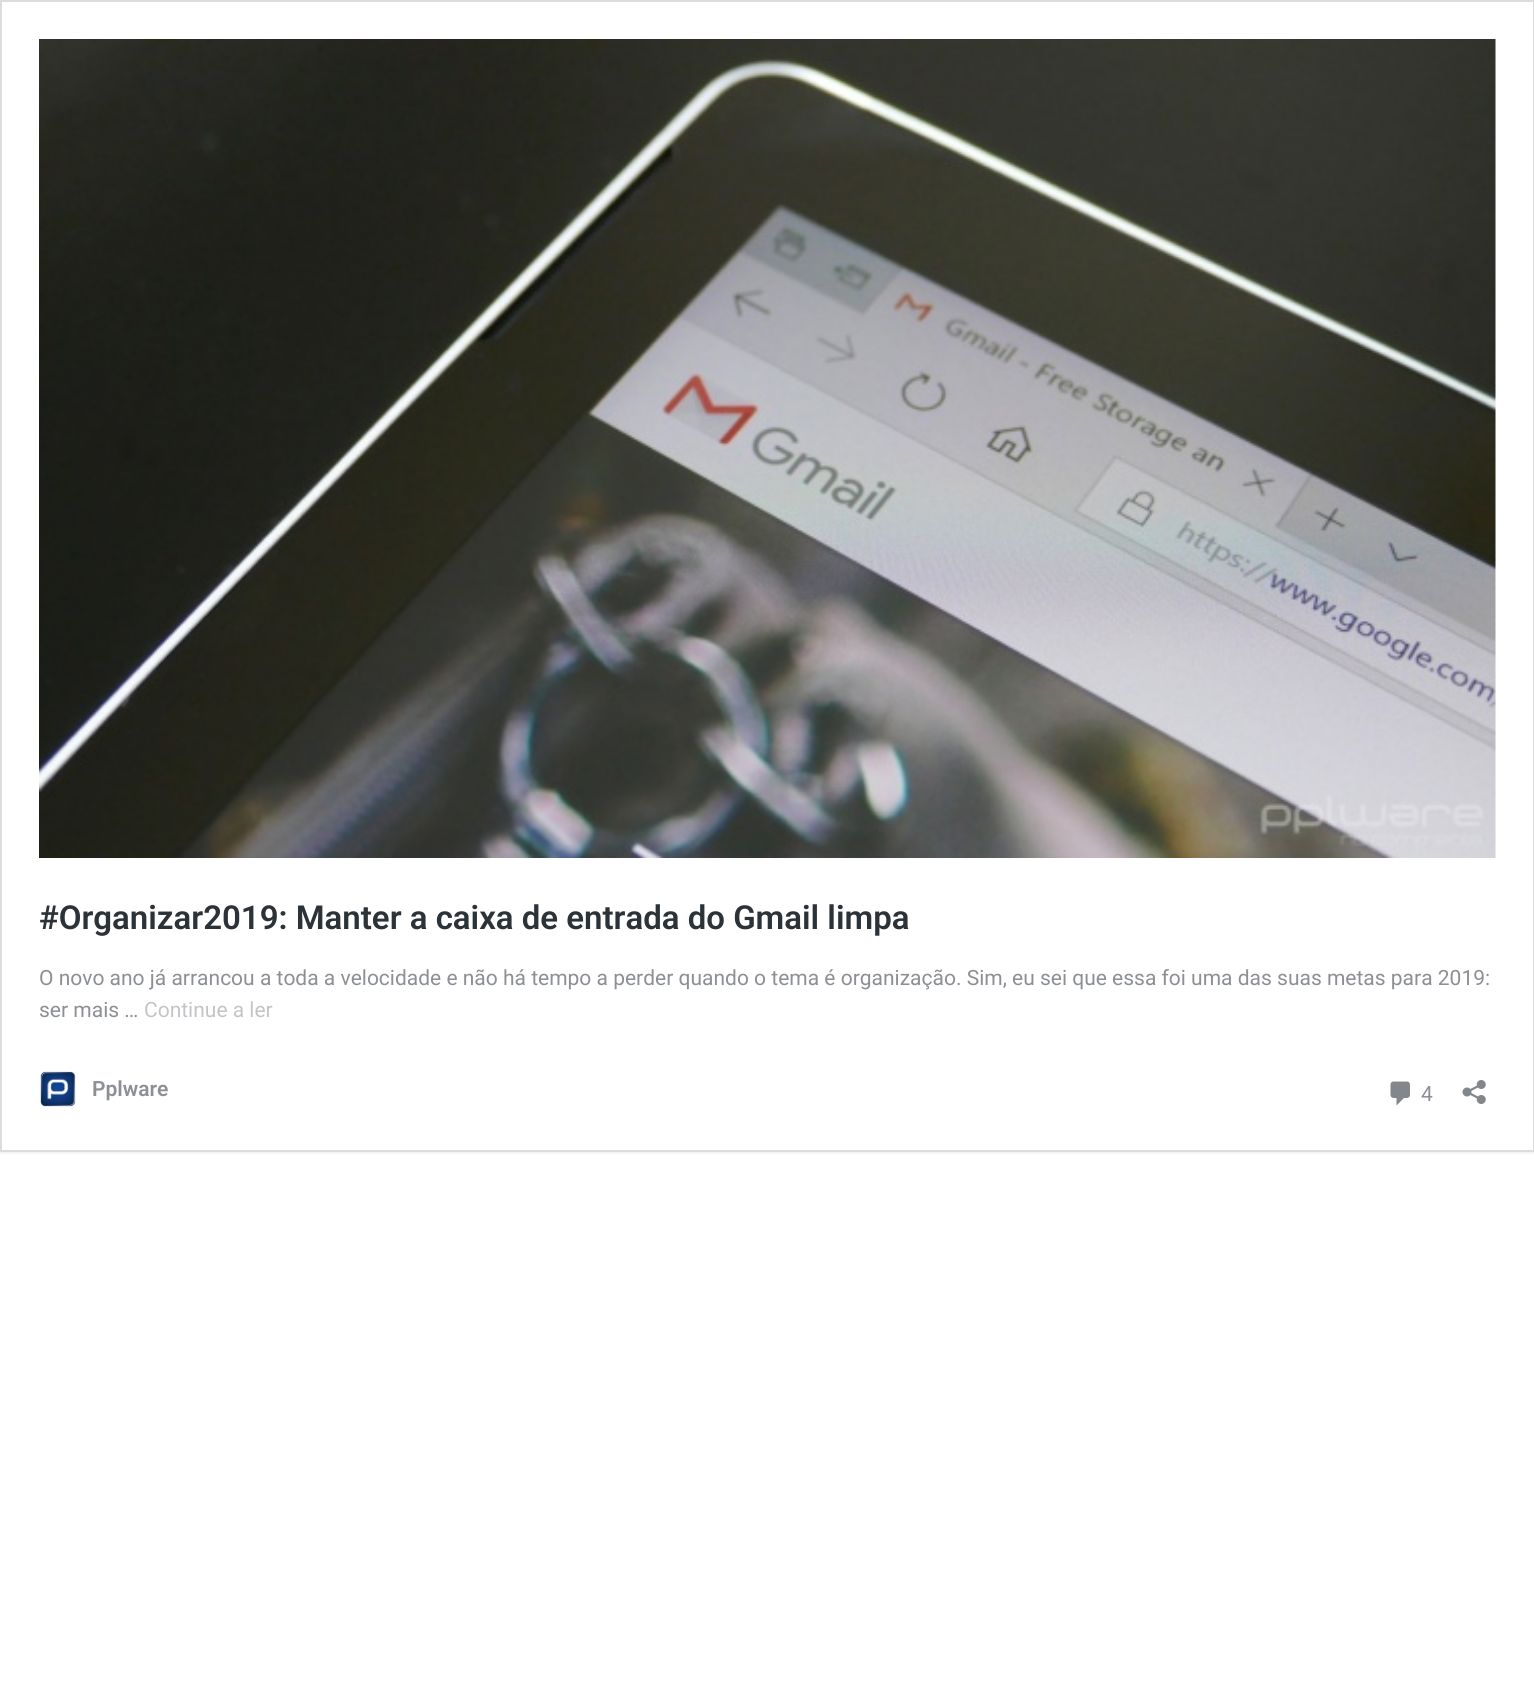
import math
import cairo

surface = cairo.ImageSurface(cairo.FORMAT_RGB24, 1534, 1683)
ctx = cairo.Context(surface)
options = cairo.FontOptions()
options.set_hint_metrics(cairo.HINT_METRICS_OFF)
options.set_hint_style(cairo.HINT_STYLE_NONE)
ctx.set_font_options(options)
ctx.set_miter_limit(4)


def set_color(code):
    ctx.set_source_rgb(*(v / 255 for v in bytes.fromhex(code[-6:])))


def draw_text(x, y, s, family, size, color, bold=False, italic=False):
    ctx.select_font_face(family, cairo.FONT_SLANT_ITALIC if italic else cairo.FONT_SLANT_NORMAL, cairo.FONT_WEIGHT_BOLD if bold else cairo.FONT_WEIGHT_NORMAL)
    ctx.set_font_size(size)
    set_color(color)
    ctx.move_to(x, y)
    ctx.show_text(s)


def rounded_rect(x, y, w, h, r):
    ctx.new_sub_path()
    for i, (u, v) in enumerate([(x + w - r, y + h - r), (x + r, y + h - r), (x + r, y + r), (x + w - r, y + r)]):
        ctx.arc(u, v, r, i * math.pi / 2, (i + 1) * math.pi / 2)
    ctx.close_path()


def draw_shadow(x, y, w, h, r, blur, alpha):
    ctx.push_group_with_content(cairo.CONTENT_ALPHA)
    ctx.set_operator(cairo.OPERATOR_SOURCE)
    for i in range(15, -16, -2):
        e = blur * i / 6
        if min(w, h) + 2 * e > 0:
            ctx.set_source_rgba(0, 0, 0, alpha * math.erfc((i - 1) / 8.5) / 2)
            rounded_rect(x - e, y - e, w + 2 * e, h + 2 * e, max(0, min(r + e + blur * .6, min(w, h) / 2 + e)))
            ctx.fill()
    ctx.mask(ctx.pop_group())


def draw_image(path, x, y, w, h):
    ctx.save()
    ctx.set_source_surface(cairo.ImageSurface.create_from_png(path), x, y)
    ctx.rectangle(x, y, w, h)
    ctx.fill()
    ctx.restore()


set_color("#ffffff")
ctx.paint()
ctx.save()
ctx.rectangle(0, 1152, 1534, 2)
ctx.clip()
set_color("#000000")
draw_shadow(0, 2, 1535, 1152, 0, 1, 0.05)
ctx.restore()
ctx.rectangle(1, 1, 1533, 1150)
set_color("#dcdcde")
ctx.stroke()
draw_image("assets/img1.png", 39, 39, 1457, 819)
draw_text(39, 929, "#Organizar2019: Manter a caixa de entrada do Gmail limpa", "Roboto SemiBold", 33, "#2c3338")
draw_text(39, 985, "O novo ano já arrancou a toda a velocidade e não há tempo a perder quando o tema é organização. Sim, eu sei que essa foi uma das suas metas para 2019:", "Roboto", 21, "#8c8f94")
draw_text(39, 1017, "ser mais …", "Roboto", 21, "#8c8f94")
draw_text(144, 1017, "Continue a ler", "Roboto", 21, "#c3c4c7")
draw_image("assets/img2.png", 40, 1071, 36, 36)
draw_text(92, 1096, "Pplware", "Roboto SemiBold", 21, "#8c8f94")
draw_image("assets/img3.png", 1390, 1081, 20, 25)
draw_text(1421, 1101, "4", "Roboto", 21, "#8c8f94")
draw_image("assets/img4.png", 1462, 1080, 24, 24)
surface.write_to_png("output.png")
